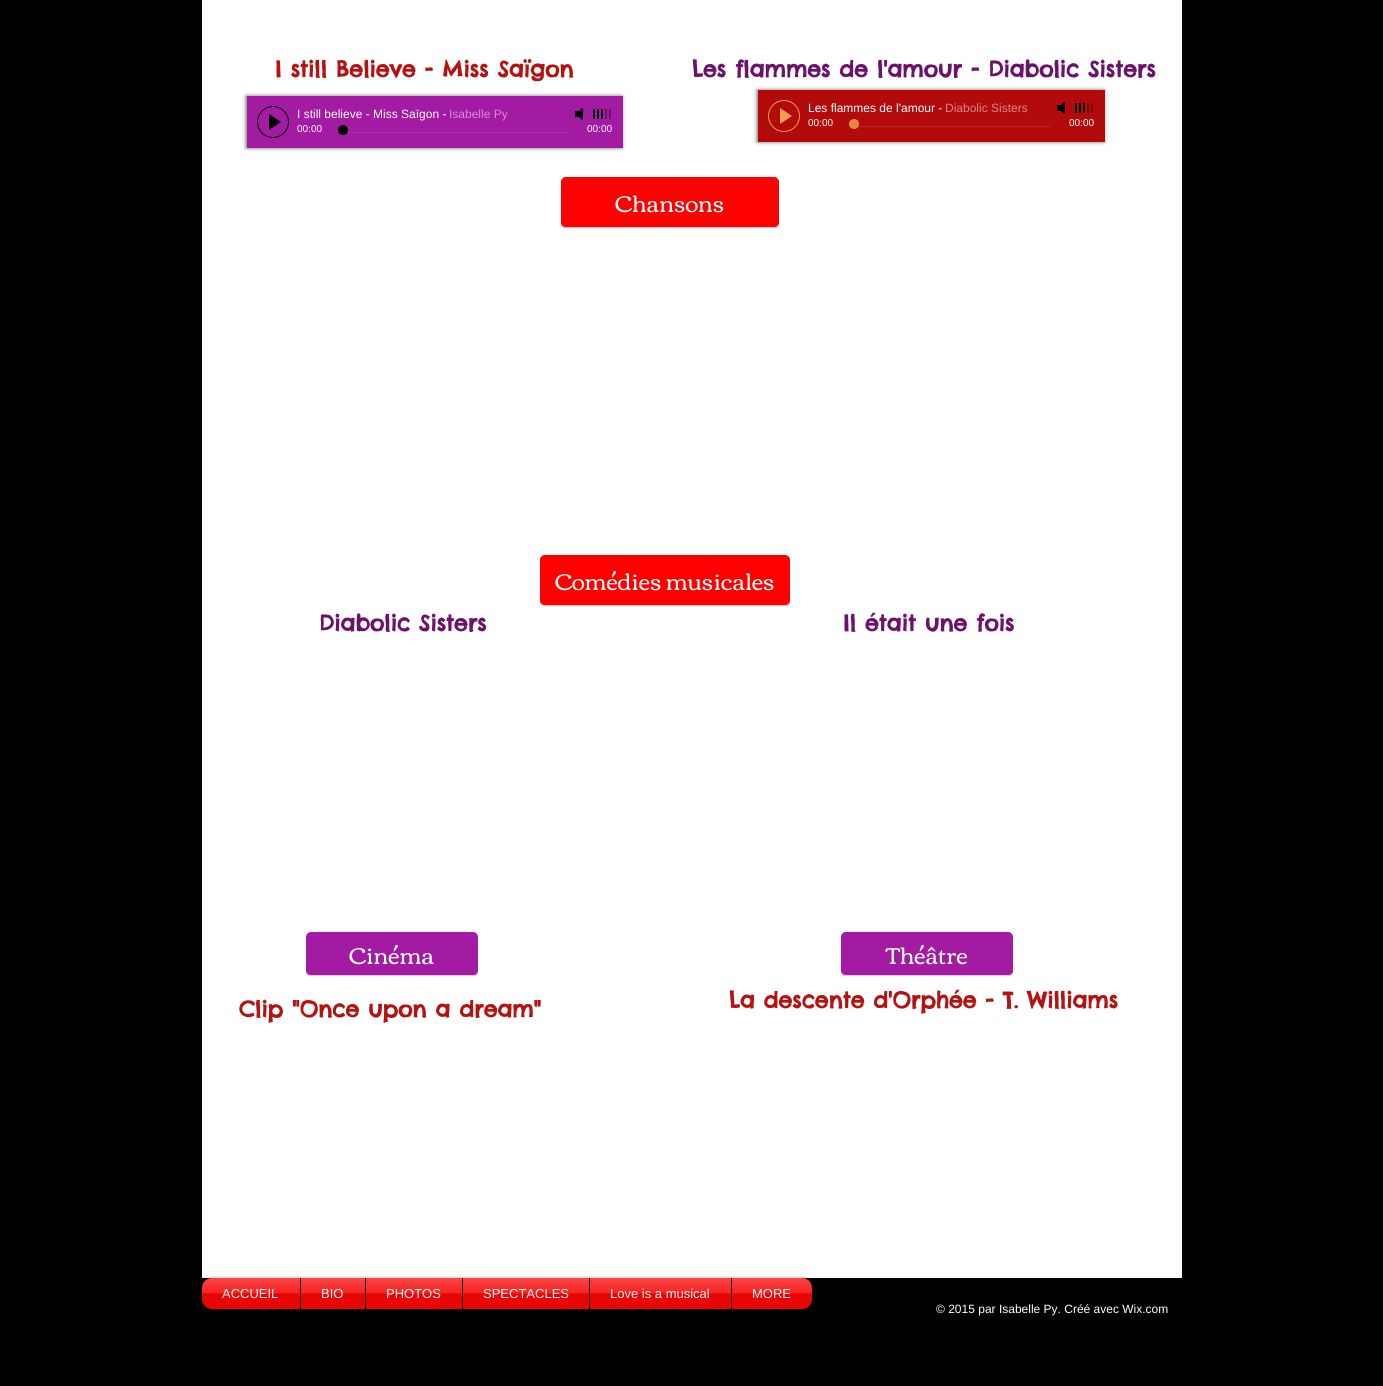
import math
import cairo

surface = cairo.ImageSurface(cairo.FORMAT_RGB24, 1383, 1386)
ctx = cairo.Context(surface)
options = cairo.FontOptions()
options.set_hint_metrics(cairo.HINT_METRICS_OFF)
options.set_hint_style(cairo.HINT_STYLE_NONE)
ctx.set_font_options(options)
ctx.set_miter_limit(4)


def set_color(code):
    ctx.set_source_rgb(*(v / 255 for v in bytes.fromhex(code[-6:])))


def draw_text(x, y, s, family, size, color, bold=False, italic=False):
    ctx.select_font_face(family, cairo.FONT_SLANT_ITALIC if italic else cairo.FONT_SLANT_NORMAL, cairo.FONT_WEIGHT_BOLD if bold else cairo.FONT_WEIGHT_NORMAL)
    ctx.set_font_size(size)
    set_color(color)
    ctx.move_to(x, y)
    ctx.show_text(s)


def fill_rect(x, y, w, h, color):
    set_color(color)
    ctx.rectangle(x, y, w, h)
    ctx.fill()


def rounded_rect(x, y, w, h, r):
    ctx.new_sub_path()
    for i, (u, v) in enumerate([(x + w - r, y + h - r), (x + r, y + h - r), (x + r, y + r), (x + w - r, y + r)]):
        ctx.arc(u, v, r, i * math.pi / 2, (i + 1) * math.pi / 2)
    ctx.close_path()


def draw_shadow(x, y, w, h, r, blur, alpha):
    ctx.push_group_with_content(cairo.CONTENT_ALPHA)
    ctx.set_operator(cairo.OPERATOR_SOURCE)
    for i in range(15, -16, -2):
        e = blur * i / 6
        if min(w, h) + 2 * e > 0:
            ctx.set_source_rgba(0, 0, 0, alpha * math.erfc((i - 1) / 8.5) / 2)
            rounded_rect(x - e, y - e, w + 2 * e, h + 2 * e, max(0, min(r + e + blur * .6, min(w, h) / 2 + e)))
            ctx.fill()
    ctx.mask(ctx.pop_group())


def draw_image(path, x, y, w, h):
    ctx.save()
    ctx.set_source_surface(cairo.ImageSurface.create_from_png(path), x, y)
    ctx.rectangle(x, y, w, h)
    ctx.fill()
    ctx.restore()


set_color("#000000")
ctx.paint()
fill_rect(202, 0, 980, 1278, "#ffffff")
draw_text(275, 77, "I still Believe - Miss Saïgon", "Chelsea Market", 22, "#b51212", bold=True)
draw_text(692, 77, "Les flammes de l'amour - Diabolic Sisters", "Chelsea Market", 22, "#6c116c", bold=True)
set_color("#000000")
draw_shadow(246, 96, 376, 52, 0, 2, 0.6)
fill_rect(247, 96, 376, 52, "#a31aa3")
ctx.arc(273, 122, 15.5, 0, 2 * math.pi)
set_color("#000000")
ctx.set_line_width(1)
ctx.stroke()
ctx.new_path()
ctx.move_to(269, 130)
ctx.line_to(269, 114)
ctx.line_to(281, 122)
ctx.close_path()
ctx.fill()
draw_text(297, 118, "I still believe - Miss Saïgon -", "Liberation Sans", 12, "#ffffff")
draw_text(449, 118, "Isabelle Py", "Liberation Sans", 12, "#d18dd1")
set_color("#000000")
ctx.new_path()
ctx.move_to(576, 114)
ctx.line_to(582, 120)
ctx.curve_to(583.5, 118.5, 583, 116, 583, 114)
ctx.curve_to(583, 112, 583.5, 109.5, 582, 108)
ctx.close_path()
ctx.fill()
fill_rect(575, 111, 4, 6, "#000000")
fill_rect(593, 109, 2, 10, "#000000")
fill_rect(597, 109, 2, 10, "#000000")
fill_rect(601, 109, 2, 10, "#000000")
fill_rect(605, 109, 2, 10, "#721272")
fill_rect(609, 109, 2, 10, "#721272")
draw_text(297, 132, "00:00", "Liberation Sans", 10, "#ffffff")
draw_text(587, 132, "00:00", "Liberation Sans", 10, "#ffffff")
set_color("#ab2fab")
ctx.new_path()
ctx.move_to(338, 130)
ctx.curve_to(338, 132, 339, 133, 340, 133)
ctx.line_to(568, 133)
ctx.curve_to(569, 133, 570, 132, 570, 130)
ctx.curve_to(570, 131, 569, 132, 568, 132)
ctx.line_to(340, 132)
ctx.close_path()
ctx.fill()
set_color("#000000")
ctx.arc(343, 130, 5, 0, 2 * math.pi)
ctx.fill()
set_color("#000000")
draw_shadow(757, 90, 347, 52, 0, 2, 0.6)
fill_rect(758, 90, 347, 52, "#b30b0b")
ctx.arc(784, 116, 15.5, 0, 2 * math.pi)
set_color("#ec9e55")
ctx.stroke()
ctx.new_path()
ctx.move_to(780, 124)
ctx.line_to(780, 108)
ctx.line_to(792, 116)
ctx.close_path()
ctx.fill()
draw_text(808, 112, "Les flammes de l'amour -", "Liberation Sans", 12, "#ffffff")
draw_text(945, 112, "Diabolic Sisters", "Liberation Sans", 12, "#d98585")
set_color("#000000")
ctx.new_path()
ctx.move_to(1058, 108)
ctx.line_to(1064, 114)
ctx.curve_to(1065.5, 112.5, 1065, 110, 1065, 108)
ctx.curve_to(1065, 106, 1065.5, 103.5, 1064, 102)
ctx.close_path()
ctx.fill()
fill_rect(1057, 105, 4, 6, "#000000")
fill_rect(1075, 103, 2, 10, "#000000")
fill_rect(1079, 103, 2, 10, "#000000")
fill_rect(1083, 103, 2, 10, "#000000")
fill_rect(1087, 103, 2, 10, "#7d0808")
fill_rect(1091, 103, 2, 10, "#7d0808")
draw_text(808, 126, "00:00", "Liberation Sans", 10, "#ffffff")
draw_text(1069, 126, "00:00", "Liberation Sans", 10, "#ffffff")
set_color("#ba2121")
ctx.new_path()
ctx.move_to(849, 124)
ctx.line_to(849, 125)
ctx.curve_to(850, 126, 851, 127, 852, 127)
ctx.line_to(1050, 127)
ctx.curve_to(1051, 126, 1052, 125, 1052, 124)
ctx.curve_to(1052, 125, 1051, 126, 1050, 126)
ctx.line_to(852, 126)
ctx.curve_to(850, 126, 849, 125, 849, 124)
ctx.close_path()
ctx.fill()
set_color("#e08842")
ctx.arc(854, 124, 5, 0, 2 * math.pi)
ctx.fill()
set_color("#ff0000")
rounded_rect(561, 177, 218, 51, 5)
ctx.fill()
ctx.set_source_rgba(1, 1, 1, 0.75)
ctx.new_path()
ctx.move_to(561, 222)
ctx.curve_to(561, 225, 563, 228, 566, 228)
ctx.line_to(775, 228)
ctx.curve_to(778, 227, 779, 225, 779, 222)
ctx.curve_to(779, 225, 777, 227, 774, 227)
ctx.line_to(566, 227)
ctx.curve_to(563, 227, 561, 225, 561, 222)
ctx.close_path()
ctx.fill()
draw_text(615, 212, "Chansons", "Corben", 23, "#ffffff")
set_color("#ff0000")
rounded_rect(540, 555, 250, 51, 5)
ctx.fill()
ctx.set_source_rgba(1, 1, 1, 0.75)
ctx.new_path()
ctx.move_to(540, 600)
ctx.line_to(540, 601)
ctx.curve_to(540, 604, 542, 606, 545, 606)
ctx.line_to(785, 606)
ctx.curve_to(788, 606, 790, 604, 790, 601)
ctx.line_to(790, 600)
ctx.curve_to(790, 603, 788, 605, 785, 605)
ctx.line_to(545, 605)
ctx.curve_to(542, 605, 540, 603, 540, 600)
ctx.close_path()
ctx.fill()
draw_text(555, 590, "Comédies musicales", "Corben", 23, "#ffffff")
draw_text(319, 631, "Diabolic Sisters", "Chelsea Market", 22, "#6c116c", bold=True)
draw_text(843, 631, "Il était une fois", "Chelsea Market", 22, "#6c116c", bold=True)
set_color("#a31aa3")
rounded_rect(306, 932, 172, 44, 5)
ctx.fill()
ctx.set_source_rgba(1, 1, 1, 0.75)
ctx.new_path()
ctx.move_to(306, 970)
ctx.curve_to(306, 973, 307, 975, 310, 976)
ctx.line_to(473, 976)
ctx.curve_to(476, 976, 478, 973, 478, 970)
ctx.curve_to(478, 973, 476, 975, 473, 975)
ctx.line_to(311, 975)
ctx.curve_to(308, 975, 306, 973, 306, 970)
ctx.close_path()
ctx.fill()
draw_text(349, 964, "Cinéma", "Corben", 23, "#ffffff")
set_color("#a31aa3")
rounded_rect(841, 932, 172, 44, 5)
ctx.fill()
ctx.set_source_rgba(1, 1, 1, 0.75)
ctx.new_path()
ctx.move_to(841, 970)
ctx.curve_to(841, 973, 842, 975, 845, 976)
ctx.line_to(1008, 976)
ctx.curve_to(1011, 976, 1013, 973, 1013, 970)
ctx.curve_to(1013, 973, 1011, 975, 1008, 975)
ctx.line_to(846, 975)
ctx.curve_to(843, 975, 841, 973, 841, 970)
ctx.close_path()
ctx.fill()
draw_text(886, 964, "Théâtre", "Corben", 23, "#ffffff")
draw_text(239, 1017, "Clip \"Once upon a dream\"", "Chelsea Market", 22, "#b51212", bold=True)
draw_text(729, 1008, "La descente d'Orphée - T. Williams", "Chelsea Market", 22, "#b51212", bold=True)
set_color("#000000")
draw_shadow(202, 1279, 610, 31, 10, 2, 0.6)
draw_image("assets/img1.png", 202, 1278, 610, 31)
set_color("#f70505")
ctx.new_path()
ctx.move_to(212, 1278)
ctx.line_to(300, 1278)
ctx.line_to(300, 1309)
ctx.line_to(212, 1309)
ctx.curve_to(206.5, 1309, 202, 1304.5, 202, 1299)
ctx.line_to(202, 1288)
ctx.curve_to(202, 1282.5, 206.5, 1278, 212, 1278)
ctx.close_path()
ctx.fill()
draw_text(222, 1298, "ACCUEIL", "Liberation Sans", 13, "#ffffff")
draw_image("assets/img2.png", 202, 1278, 98, 31)
fill_rect(301, 1278, 64, 31, "#f70505")
fill_rect(300, 1278, 1, 16, "#000000")
draw_text(321, 1298, "BIO", "Liberation Sans", 13, "#ffffff")
draw_image("assets/img3.png", 301, 1278, 64, 31)
fill_rect(366, 1278, 96, 31, "#f70505")
fill_rect(365, 1278, 1, 16, "#000000")
draw_text(386, 1298, "PHOTOS", "Liberation Sans", 13, "#ffffff")
draw_image("assets/img4.png", 366, 1278, 96, 31)
fill_rect(463, 1278, 126, 31, "#f70505")
fill_rect(462, 1278, 1, 16, "#000000")
draw_text(483, 1298, "SPECTACLES", "Liberation Sans", 13, "#ffffff")
draw_image("assets/img5.png", 463, 1278, 126, 31)
fill_rect(590, 1278, 141, 31, "#f70505")
fill_rect(589, 1278, 1, 16, "#000000")
draw_text(610, 1298, "Love is a musical", "Liberation Sans", 13, "#ffffff")
draw_image("assets/img6.png", 590, 1278, 141, 31)
set_color("#f70505")
ctx.new_path()
ctx.move_to(731, 1278)
ctx.line_to(802, 1278)
ctx.curve_to(807.5, 1278, 812, 1282.5, 812, 1288)
ctx.line_to(812, 1299)
ctx.curve_to(812, 1304.5, 807.5, 1309, 802, 1309)
ctx.line_to(731, 1309)
ctx.close_path()
ctx.fill()
fill_rect(731, 1278, 1, 31, "#000000")
draw_text(752, 1298, "MORE", "Liberation Sans", 13, "#ffffff")
draw_image("assets/img7.png", 732, 1278, 80, 31)
draw_text(936, 1313, "© 2015 par Isabelle Py. Créé avec Wix.com", "Liberation Sans", 12, "#ffffff")
surface.write_to_png("output.png")
